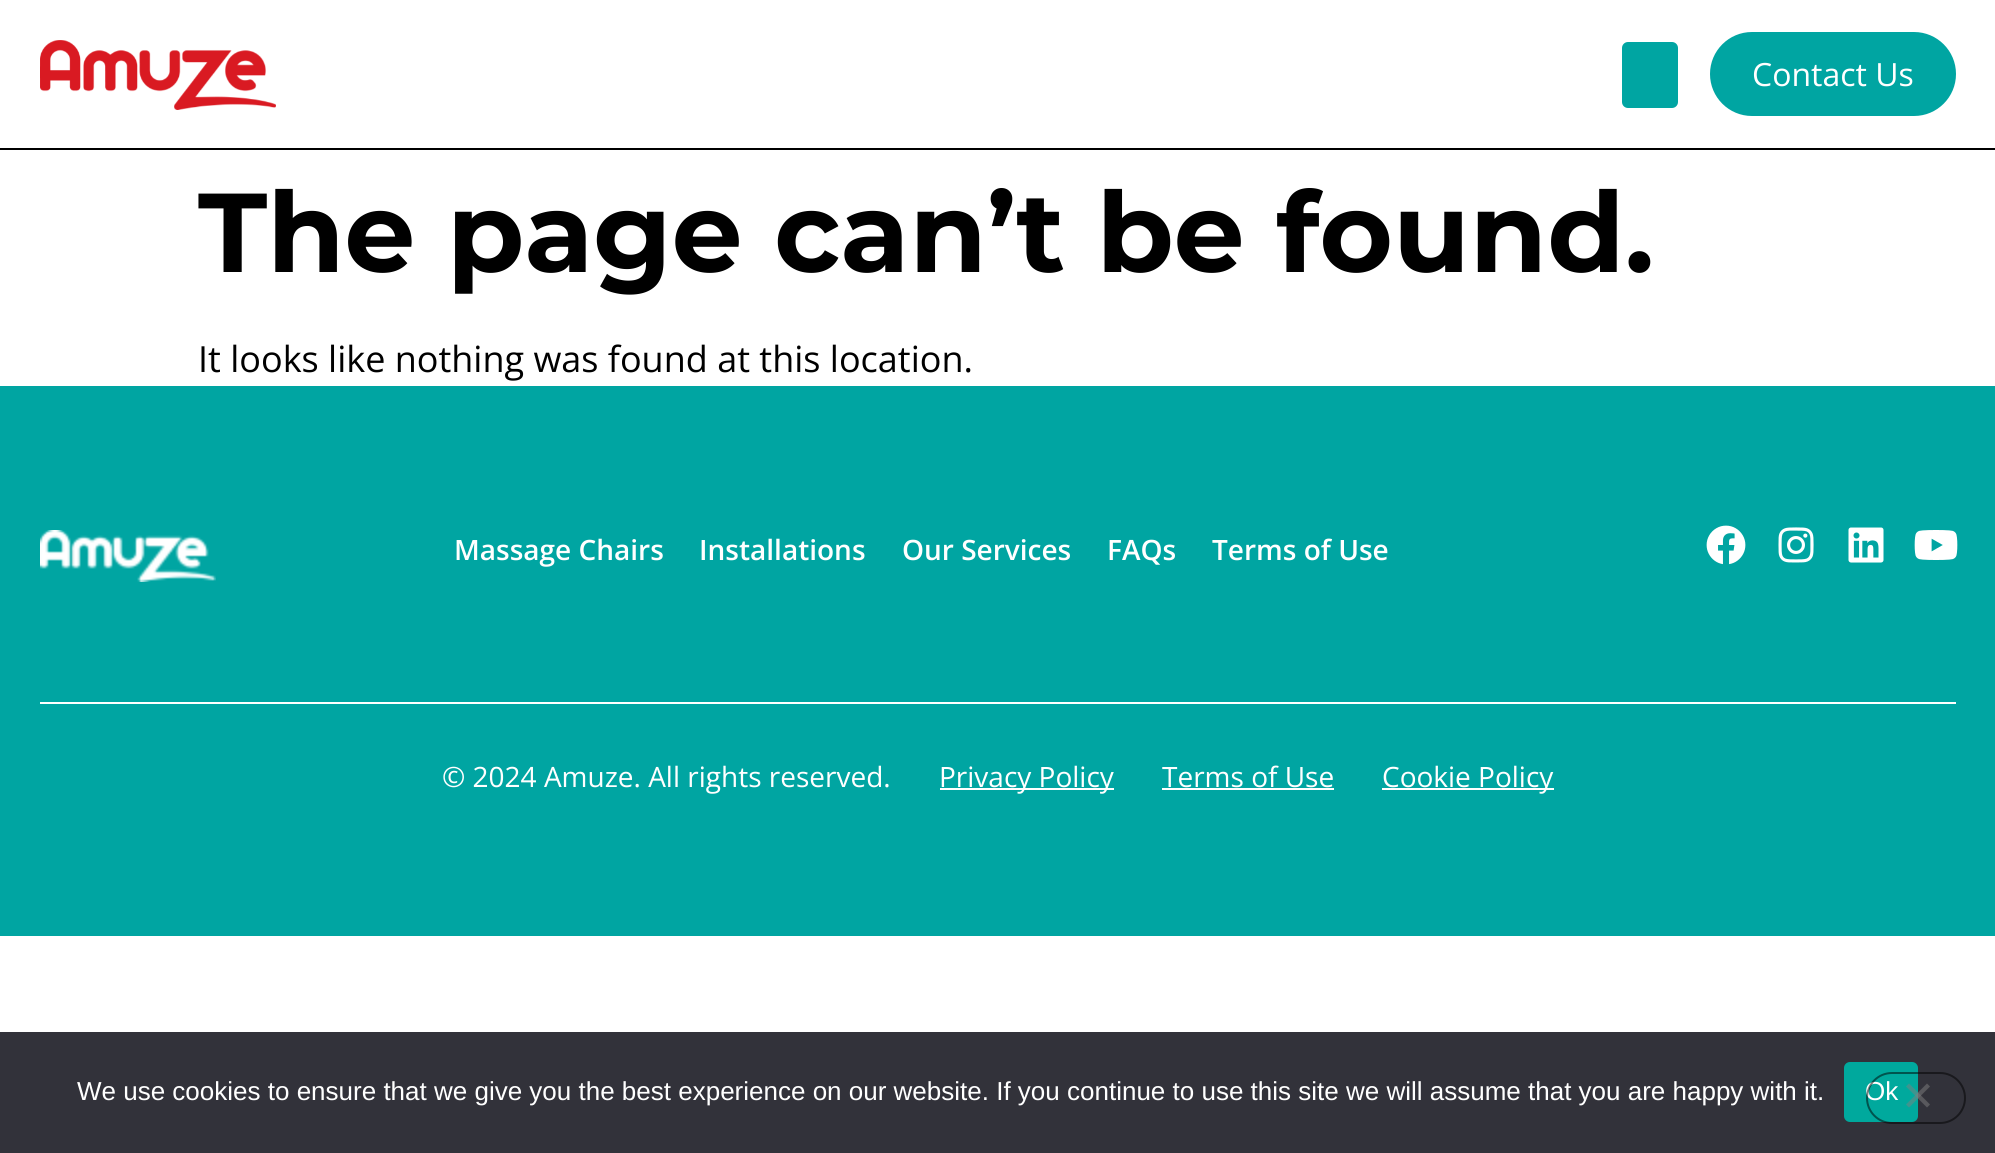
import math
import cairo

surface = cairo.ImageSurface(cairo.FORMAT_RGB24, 1995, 1153)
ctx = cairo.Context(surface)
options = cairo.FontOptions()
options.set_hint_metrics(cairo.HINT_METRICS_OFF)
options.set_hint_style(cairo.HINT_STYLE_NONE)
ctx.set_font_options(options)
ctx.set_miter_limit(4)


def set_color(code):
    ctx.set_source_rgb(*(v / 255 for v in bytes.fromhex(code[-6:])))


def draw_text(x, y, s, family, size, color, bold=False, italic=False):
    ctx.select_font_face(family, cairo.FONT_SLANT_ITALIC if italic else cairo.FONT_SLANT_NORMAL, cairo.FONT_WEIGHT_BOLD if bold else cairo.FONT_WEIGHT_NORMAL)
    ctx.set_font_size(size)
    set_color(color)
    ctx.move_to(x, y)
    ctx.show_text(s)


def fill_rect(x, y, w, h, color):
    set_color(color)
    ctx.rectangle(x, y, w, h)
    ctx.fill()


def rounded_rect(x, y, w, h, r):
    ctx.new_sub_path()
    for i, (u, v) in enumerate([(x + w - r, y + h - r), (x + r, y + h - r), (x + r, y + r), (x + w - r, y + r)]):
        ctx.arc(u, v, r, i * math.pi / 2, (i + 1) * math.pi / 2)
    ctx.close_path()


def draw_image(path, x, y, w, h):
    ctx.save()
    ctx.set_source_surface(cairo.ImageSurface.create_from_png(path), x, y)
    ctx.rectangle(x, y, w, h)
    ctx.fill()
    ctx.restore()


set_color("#ffffff")
ctx.paint()
fill_rect(0, 148, 1995, 2, "#000000")
draw_image("assets/img1.png", 40, 40, 236, 70)
set_color("#00a5a2")
rounded_rect(1622, 42, 56, 66, 6)
ctx.fill()
rounded_rect(1711, 33, 244, 82, 41)
ctx.fill_preserve()
ctx.stroke()
draw_text(1752, 86, "Contact Us", "Open Sans", 32, "#ffffff")
draw_text(198, 272, "The page can’t be found.", "Montserrat", 112, "#000000", bold=True)
draw_text(198, 372, "It looks like nothing was found at this location.", "Open Sans", 36, "#000000")
fill_rect(0, 386, 1995, 550, "#00a5a2")
draw_image("assets/img2.png", 40, 530, 176, 52)
draw_text(454, 560, "Massage Chairs", "Open Sans SemiBold", 28, "#ffffff")
draw_text(699, 560, "Installations", "Open Sans SemiBold", 28, "#ffffff")
draw_text(902, 560, "Our Services", "Open Sans SemiBold", 28, "#ffffff")
draw_text(1107, 560, "FAQs", "Open Sans SemiBold", 28, "#ffffff")
draw_text(1212, 560, "Terms of Use", "Open Sans SemiBold", 28, "#ffffff")
draw_image("assets/img3.png", 1706, 525, 40, 40)
draw_image("assets/img4.png", 1778, 527, 36, 36)
draw_image("assets/img5.png", 1848, 527, 36, 36)
draw_image("assets/img6.png", 1914, 530, 44, 30)
fill_rect(40, 702, 1916, 2, "#ffffff")
draw_text(442, 787, "© 2024 Amuze. All rights reserved.", "Open Sans", 28, "#ffffff")
fill_rect(940, 788, 174, 2, "#ffffff")
draw_text(939, 787, "Privacy Policy", "Open Sans", 28, "#ffffff")
draw_text(1162, 787, "Terms of Use", "Open Sans", 28, "#ffffff")
fill_rect(1162, 788, 172, 2, "#ffffff")
fill_rect(1382, 788, 172, 2, "#ffffff")
draw_text(1382, 787, "Cookie Policy", "Open Sans", 28, "#ffffff")
fill_rect(0, 1032, 1995, 121, "#32323a")
draw_text(77, 1100, "We use cookies to ensure that we give you the best experience on our website. If you continue to use this site we will assume that you are happy with it.", "Liberation Sans", 26, "#ffffff")
set_color("#00a99d")
rounded_rect(1844, 1062, 74, 60, 6)
ctx.fill()
draw_text(1865, 1100, "Ok", "Liberation Sans", 26, "#ffffff")
rounded_rect(1867, 1073, 98, 50, 25)
ctx.set_source_rgba(0, 0, 0, 0.5)
ctx.stroke()
ctx.set_source_rgba(0.502, 0.502, 0.502, 0.5)
ctx.new_path()
ctx.move_to(1927, 1083.5)
ctx.line_to(1930, 1086.5)
ctx.line_to(1909, 1107.5)
ctx.line_to(1906, 1104.5)
ctx.close_path()
ctx.fill()
ctx.new_path()
ctx.move_to(1906, 1086.5)
ctx.line_to(1909, 1083.5)
ctx.line_to(1930, 1104.5)
ctx.line_to(1927, 1107.5)
ctx.close_path()
ctx.fill()
surface.write_to_png("output.png")
